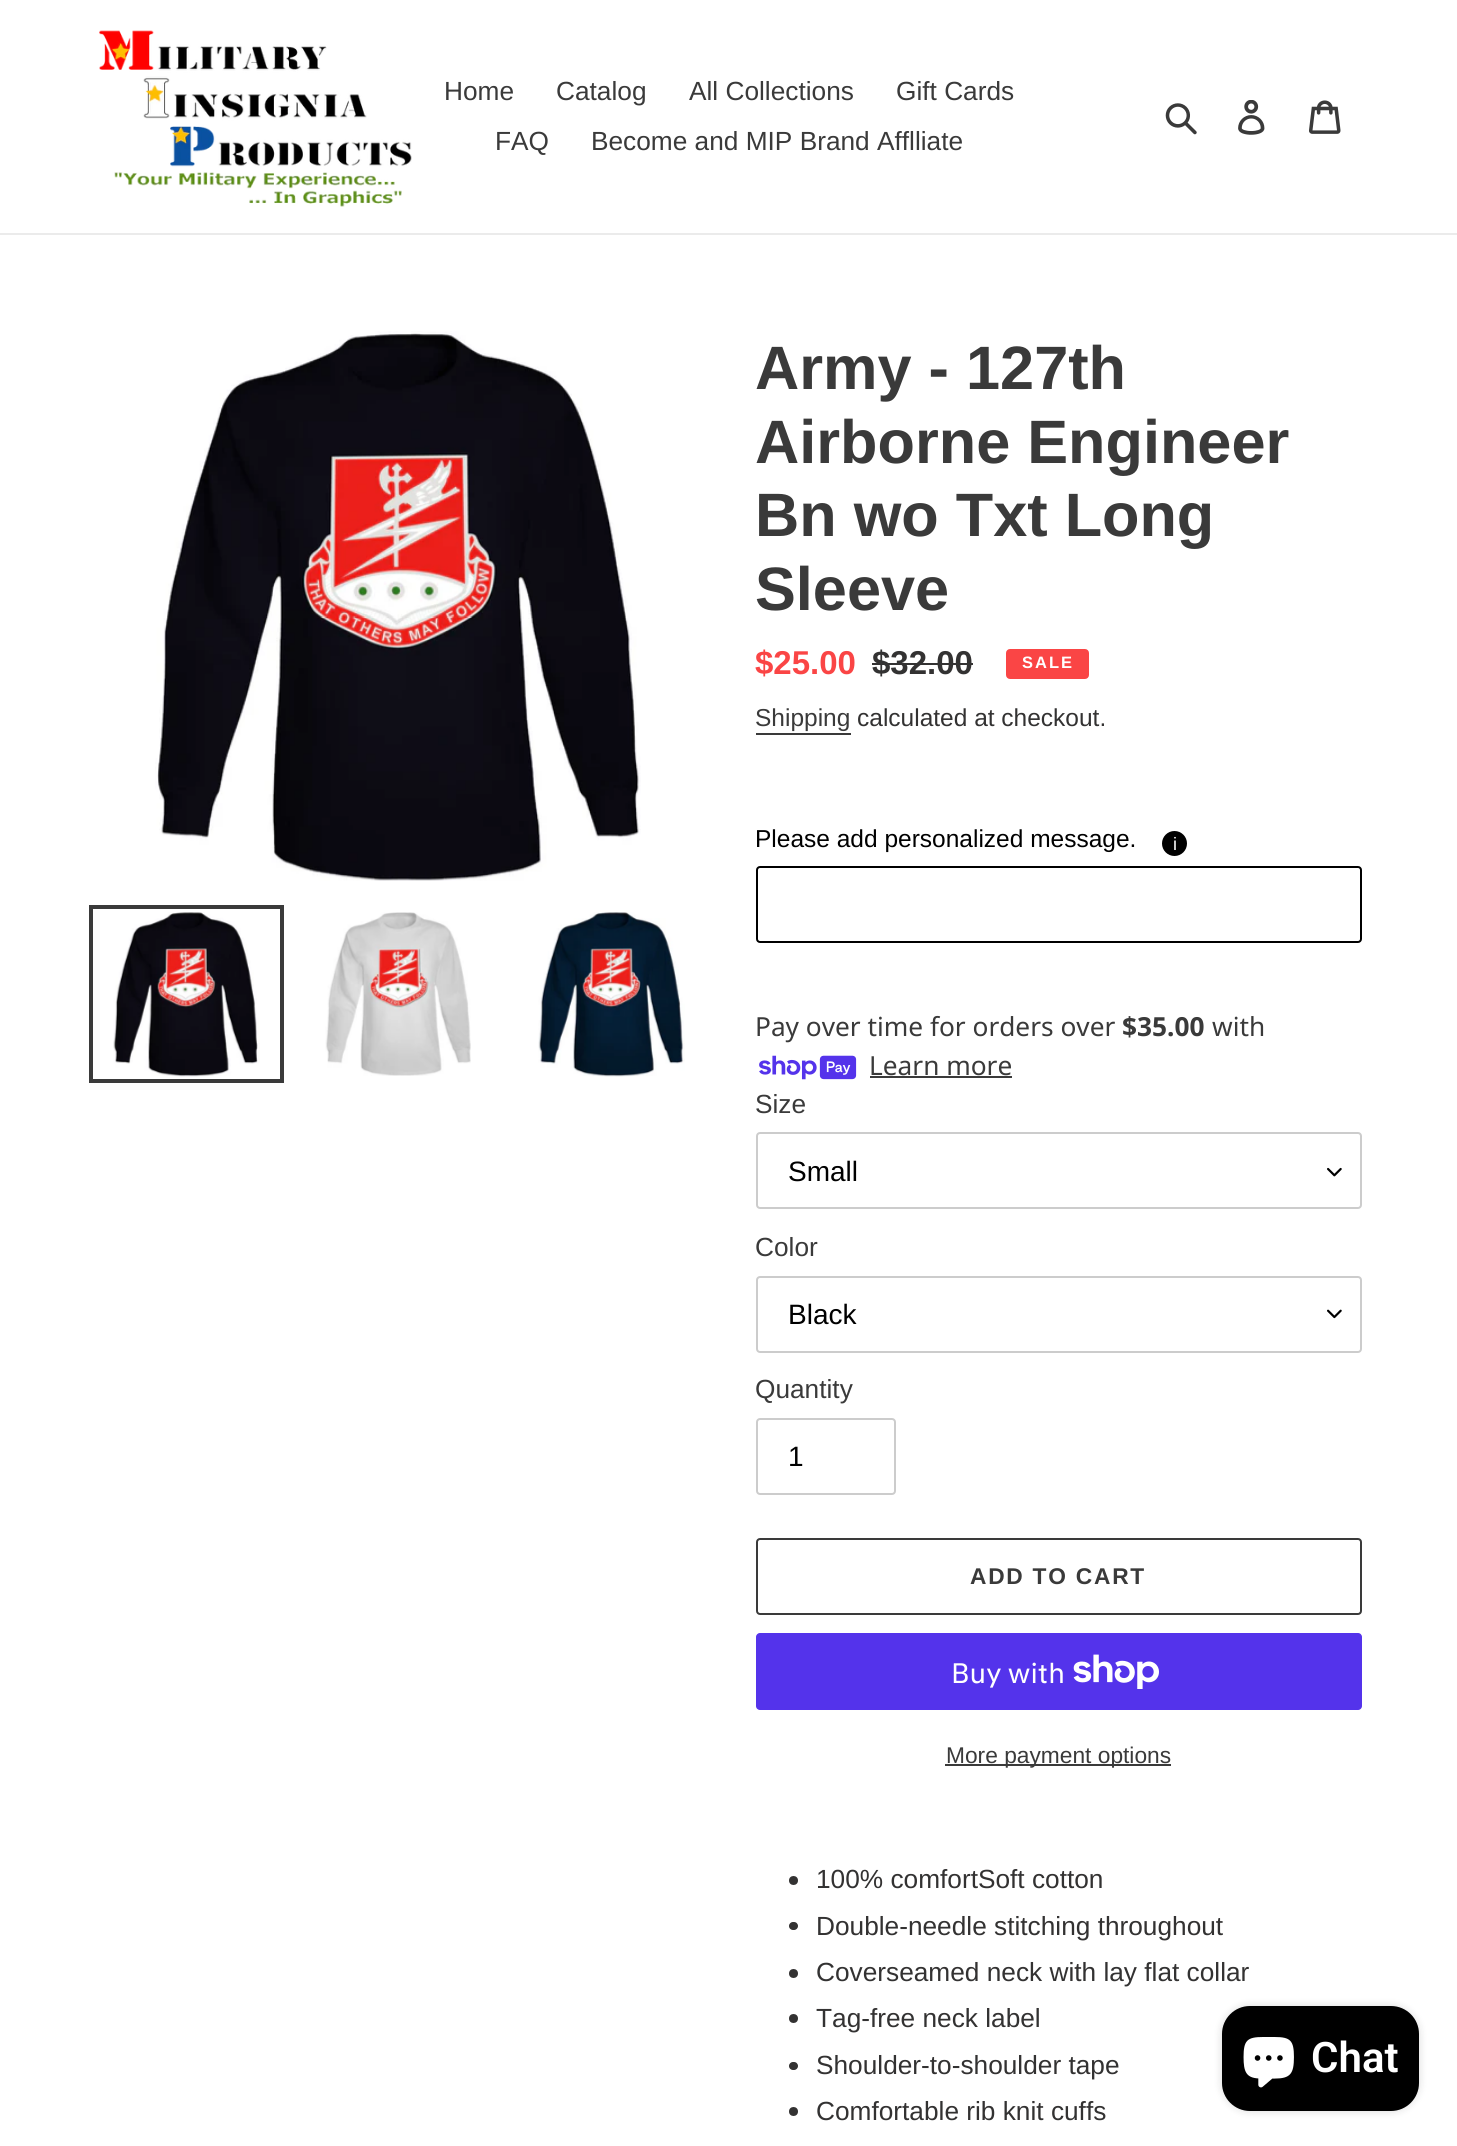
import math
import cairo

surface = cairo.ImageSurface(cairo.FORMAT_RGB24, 1457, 2146)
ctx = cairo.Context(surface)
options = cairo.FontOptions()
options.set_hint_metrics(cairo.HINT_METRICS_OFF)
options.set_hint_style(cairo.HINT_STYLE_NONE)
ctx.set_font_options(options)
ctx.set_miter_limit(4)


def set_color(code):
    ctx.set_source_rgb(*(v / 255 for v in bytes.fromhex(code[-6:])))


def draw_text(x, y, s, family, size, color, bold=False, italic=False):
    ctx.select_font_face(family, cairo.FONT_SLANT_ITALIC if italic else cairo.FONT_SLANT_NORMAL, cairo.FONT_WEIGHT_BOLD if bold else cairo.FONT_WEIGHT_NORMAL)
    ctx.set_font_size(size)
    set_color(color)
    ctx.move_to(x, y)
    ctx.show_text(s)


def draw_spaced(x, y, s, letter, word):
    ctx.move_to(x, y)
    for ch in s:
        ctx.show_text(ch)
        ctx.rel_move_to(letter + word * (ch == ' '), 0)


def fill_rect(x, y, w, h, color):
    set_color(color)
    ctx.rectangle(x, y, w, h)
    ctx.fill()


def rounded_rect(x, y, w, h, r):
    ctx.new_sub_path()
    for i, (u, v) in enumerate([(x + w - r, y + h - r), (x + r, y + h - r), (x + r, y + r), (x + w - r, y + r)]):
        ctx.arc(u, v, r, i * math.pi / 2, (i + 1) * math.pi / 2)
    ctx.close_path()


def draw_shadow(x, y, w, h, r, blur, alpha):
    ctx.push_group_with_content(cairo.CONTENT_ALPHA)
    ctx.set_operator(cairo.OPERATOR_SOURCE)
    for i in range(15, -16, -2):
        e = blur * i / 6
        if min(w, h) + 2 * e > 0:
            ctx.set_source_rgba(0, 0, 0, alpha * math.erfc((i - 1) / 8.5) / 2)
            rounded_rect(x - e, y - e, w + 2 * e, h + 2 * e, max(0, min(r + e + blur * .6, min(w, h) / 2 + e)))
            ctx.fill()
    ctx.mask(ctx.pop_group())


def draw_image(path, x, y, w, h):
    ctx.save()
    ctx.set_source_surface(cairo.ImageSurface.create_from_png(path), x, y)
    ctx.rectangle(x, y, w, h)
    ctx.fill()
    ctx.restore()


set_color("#ffffff")
ctx.paint()
fill_rect(0, 233, 1457, 2, "#ebebeb")
draw_image("assets/img1.png", 99, 30, 313, 177)
draw_text(444, 100, "Home", "Liberation Sans", 26.25, "#3a3a3a")
draw_text(556, 100, "Catalog", "Liberation Sans", 26.25, "#3a3a3a")
draw_text(689, 100, "All Collections", "Liberation Sans", 26.25, "#3a3a3a")
draw_text(896, 100, "Gift Cards", "Liberation Sans", 26.25, "#3a3a3a")
draw_text(495, 150, "FAQ", "Liberation Sans", 26.25, "#3a3a3a")
draw_text(591, 150, "Become and MIP Brand Afflliate", "Liberation Sans", 26.25, "#3a3a3a")
draw_image("assets/img2.png", 1165, 103, 32, 32)
draw_image("assets/img3.png", 1238, 100, 27, 35)
draw_image("assets/img4.png", 1309, 100, 32, 34)
draw_image("assets/img5.png", 155, 331, 486, 550)
ctx.rectangle(91, 907, 191, 174)
ctx.set_line_width(4)
ctx.stroke()
draw_image("assets/img6.png", 113, 912, 147, 165)
draw_image("assets/img7.png", 325, 912, 146, 164)
draw_image("assets/img8.png", 538, 912, 147, 165)
draw_text(755, 389, "Army - 127th", "Liberation Sans", 61.25, "#3a3a3a", bold=True)
draw_text(755, 463, "Airborne Engineer", "Liberation Sans", 61.25, "#3a3a3a", bold=True)
draw_text(755, 536, "Bn wo Txt Long", "Liberation Sans", 61.25, "#3a3a3a", bold=True)
draw_text(755, 610, "Sleeve", "Liberation Sans", 61.25, "#3a3a3a", bold=True)
draw_text(755, 674, "$25.00", "Liberation Sans", 33, "#fa4545", bold=True)
draw_text(872, 674, "$32.00", "Liberation Sans", 33, "#333232", bold=True)
fill_rect(872, 663, 101, 2, "#333232")
set_color("#fa4545")
rounded_rect(1007, 650, 81, 28, 3)
ctx.fill_preserve()
ctx.set_line_width(2)
ctx.stroke()
ctx.set_font_size(16.5)
set_color("#ffffff")
draw_spaced(1022, 668, "SALE", 2, 0)
draw_text(755, 726, "Shipping", "Liberation Sans", 24.5, "#3a3a3a")
fill_rect(756, 733, 95, 2, "#3a3a3a")
draw_text(857, 726, "calculated at checkout.", "Liberation Sans", 24.5, "#333232")
draw_text(755, 847, "Please add personalized message.", "Liberation Sans", 24.5, "#000000")
ctx.new_path()
ctx.arc(1174.5, 843.5, 12.5, 0, 2 * math.pi)
ctx.fill()
draw_text(1173, 850, "i", "Liberation Sans", 18, "#ffffff")
rounded_rect(757, 867, 604, 75, 3)
set_color("#000000")
ctx.stroke()
draw_text(755, 1036, "Pay over time for orders over", "Noto Sans", 26.25, "#3a3a3a")
draw_text(1122, 1036, "$35.00", "Noto Sans", 26.25, "#3a3a3a", bold=True)
draw_text(1212, 1036, "with", "Noto Sans", 26.25, "#3a3a3a")
draw_image("assets/img9.png", 759, 1055, 98, 25)
draw_text(869, 1075, "Learn more", "Noto Sans", 26.25, "#3a3a3a")
fill_rect(870, 1076, 142, 2, "#3a3a3a")
draw_text(755, 1113, "Size", "Liberation Sans", 26.25, "#3a3a3a")
draw_image("assets/img10.png", 1327, 1167, 15, 10)
rounded_rect(757, 1133, 604, 75, 3)
set_color("#cccccc")
ctx.stroke()
draw_text(788, 1181, "Small", "Liberation Sans", 28, "#000000")
draw_text(755, 1256, "Color", "Liberation Sans", 26.25, "#3a3a3a")
draw_image("assets/img11.png", 1327, 1309, 15, 10)
rounded_rect(757, 1277, 604, 75, 3)
set_color("#cccccc")
ctx.stroke()
draw_text(788, 1324, "Black", "Liberation Sans", 28, "#000000")
draw_text(755, 1398, "Quantity", "Liberation Sans", 26.25, "#3a3a3a")
rounded_rect(757, 1419, 138, 75, 3)
set_color("#cccccc")
ctx.stroke()
draw_text(788, 1466, "1", "Liberation Sans", 28, "#000000")
rounded_rect(757, 1539, 604, 75, 3)
set_color("#3a3a3a")
ctx.stroke()
ctx.select_font_face("Liberation Sans", cairo.FONT_SLANT_NORMAL, cairo.FONT_WEIGHT_BOLD)
ctx.set_font_size(22.75)
draw_spaced(970, 1584, "ADD TO CART", 1.75, 0)
set_color("#5433eb")
rounded_rect(756, 1633, 606, 77, 4)
ctx.fill()
draw_text(951, 1683, "Buy with", "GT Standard", 28, "#ffffff")
draw_image("assets/img12.png", 1073, 1654, 86, 35)
fill_rect(945, 1764, 226, 2, "#3a3a3a")
draw_text(946, 1763, "More payment options", "Liberation Sans", 22.75, "#3a3a3a")
set_color("#333232")
ctx.new_path()
ctx.arc(793.5, 1880.5, 4.5, 0, 2 * math.pi)
ctx.fill()
draw_text(816, 1888, "100% comfortSoft cotton", "Liberation Sans", 26.25, "#333232")
rounded_rect(789, 1922, 9, 8, 4)
ctx.fill()
draw_text(816, 1935, "Double-needle stitching throughout", "Liberation Sans", 26.25, "#333232")
ctx.new_path()
ctx.arc(793.5, 1973.5, 4.5, 0, 2 * math.pi)
ctx.fill()
draw_text(816, 1981, "Coverseamed neck with lay flat collar", "Liberation Sans", 26.25, "#333232")
ctx.new_path()
ctx.arc(793.5, 2018.5, 4.5, 0, 2 * math.pi)
ctx.fill()
draw_text(816, 2027, "Tag-free neck label", "Liberation Sans", 26.25, "#333232")
rounded_rect(789, 2062, 9, 8, 4)
ctx.fill()
draw_text(816, 2074, "Shoulder-to-shoulder tape", "Liberation Sans", 26.25, "#333232")
ctx.new_path()
ctx.arc(793.5, 2111.5, 4.5, 0, 2 * math.pi)
ctx.fill()
draw_text(816, 2120, "Comfortable rib knit cuffs", "Liberation Sans", 26.25, "#333232")
set_color("#000000")
draw_shadow(1222, 2006, 197, 105, 28, 4.5, 0.15)
set_color("#000000")
rounded_rect(1222, 2006, 197, 105, 28)
ctx.fill()
draw_image("assets/img13.png", 1243, 2037, 51, 51)
draw_text(1311, 2072, "Chat", "Roboto SemiBold", 42, "#ffffff")
surface.write_to_png("output.png")
